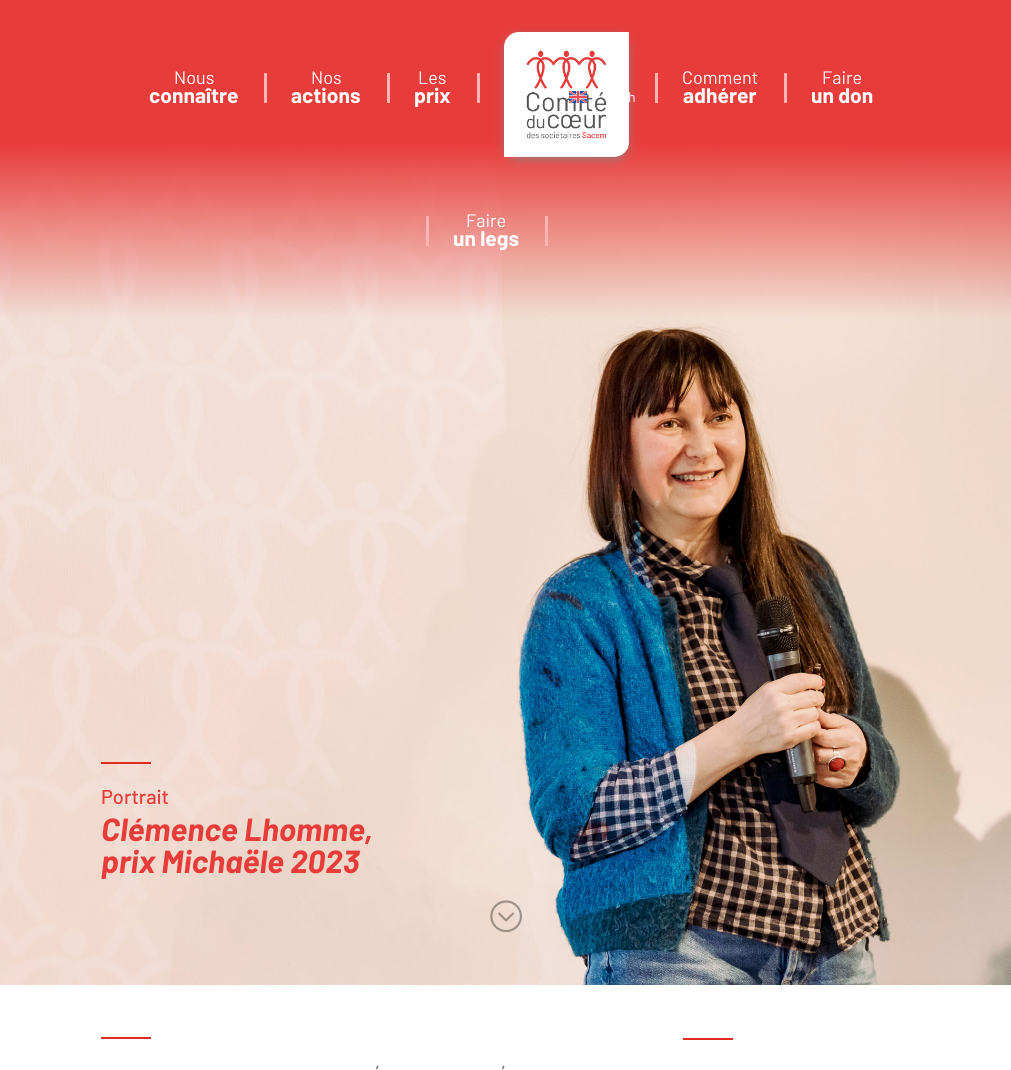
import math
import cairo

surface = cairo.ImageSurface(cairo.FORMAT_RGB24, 1011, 1070)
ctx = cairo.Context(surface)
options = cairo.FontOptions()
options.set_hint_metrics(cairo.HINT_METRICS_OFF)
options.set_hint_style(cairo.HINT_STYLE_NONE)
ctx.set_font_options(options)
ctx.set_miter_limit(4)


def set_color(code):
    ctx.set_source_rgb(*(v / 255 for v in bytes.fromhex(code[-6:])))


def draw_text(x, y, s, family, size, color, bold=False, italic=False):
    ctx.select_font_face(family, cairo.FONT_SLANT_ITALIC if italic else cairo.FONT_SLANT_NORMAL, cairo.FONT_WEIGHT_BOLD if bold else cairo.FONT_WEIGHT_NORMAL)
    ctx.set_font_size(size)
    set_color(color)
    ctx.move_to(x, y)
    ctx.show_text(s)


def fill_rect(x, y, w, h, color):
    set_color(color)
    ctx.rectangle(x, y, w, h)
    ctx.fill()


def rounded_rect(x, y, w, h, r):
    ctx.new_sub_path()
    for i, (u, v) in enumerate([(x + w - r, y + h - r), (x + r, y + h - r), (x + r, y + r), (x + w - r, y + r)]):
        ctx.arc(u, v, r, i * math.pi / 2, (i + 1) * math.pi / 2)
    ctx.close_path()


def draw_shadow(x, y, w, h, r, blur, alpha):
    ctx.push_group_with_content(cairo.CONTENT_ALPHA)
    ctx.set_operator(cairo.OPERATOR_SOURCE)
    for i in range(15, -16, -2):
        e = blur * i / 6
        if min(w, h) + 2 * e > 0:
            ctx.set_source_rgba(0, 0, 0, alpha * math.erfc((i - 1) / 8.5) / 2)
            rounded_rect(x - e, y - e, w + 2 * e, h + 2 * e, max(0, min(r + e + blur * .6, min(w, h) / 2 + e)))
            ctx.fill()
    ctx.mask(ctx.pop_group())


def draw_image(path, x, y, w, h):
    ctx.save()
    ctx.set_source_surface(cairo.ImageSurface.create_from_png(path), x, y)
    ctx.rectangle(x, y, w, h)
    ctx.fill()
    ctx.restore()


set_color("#e83c3a")
ctx.paint()
draw_text(174, 84, "Nous", "Barlow", 18, "#ffffff")
draw_text(149, 103, "connaître", "Barlow", 21, "#ffffff", bold=True)
fill_rect(264, 73, 3, 30, "#fdb4b5")
draw_text(311, 84, "Nos", "Barlow", 18, "#ffffff")
draw_text(291, 103, "actions", "Barlow", 21, "#ffffff", bold=True)
fill_rect(387, 73, 3, 30, "#fdb4b5")
draw_text(418, 84, "Les", "Barlow", 18, "#ffffff")
draw_text(414, 103, "prix", "Barlow", 21, "#ffffff", bold=True)
fill_rect(477, 73, 3, 30, "#fdb4b5")
draw_image("assets/img3.png", 0, 108, 1011, 877)
set_color("#878787")
draw_shadow(506, 37, 121, 121, 13, 5.5, 1)
draw_image("assets/img1.png", 504, 32, 125, 125)
fill_rect(655, 73, 3, 30, "#fdb4b5")
draw_text(682, 84, "Comment", "Barlow", 18, "#ffffff")
draw_text(683, 103, "adhérer", "Barlow", 21, "#ffffff", bold=True)
fill_rect(784, 73, 3, 30, "#fdb4b5")
draw_text(822, 84, "Faire", "Barlow", 18, "#ffffff")
draw_text(811, 103, "un don", "Barlow", 21, "#ffffff", bold=True)
draw_image("assets/img2.png", 569, 91, 18, 12)
draw_text(628, 102, "h", "Barlow", 14, "#ffffff")
fill_rect(545, 216, 3, 30, "#fdb4b5")
fill_rect(426, 216, 3, 30, "#fdb4b5")
draw_text(466, 227, "Faire", "Barlow", 18, "#ffffff")
draw_text(453, 246, "un legs", "Barlow", 21, "#ffffff", bold=True)
fill_rect(101, 762, 50, 2, "#e02b20")
draw_text(101, 804, "Portrait", "Barlow Medium", 20, "#e83c3a")
draw_text(101, 841, "Clémence Lhomme,", "Barlow", 32, "#e83c3a", bold=True, italic=True)
draw_text(101, 873, "prix Michaële 2023", "Barlow", 32, "#e83c3a", bold=True, italic=True)
draw_image("assets/img4.png", 490, 900, 32, 33)
fill_rect(0, 985, 1011, 85, "#ffffff")
fill_rect(683, 1038, 50, 2, "#e02b20")
fill_rect(101, 1037, 50, 2, "#e02b20")
draw_text(376, 1077, "’", "Barlow Medium", 16, "#666666")
draw_text(502, 1077, "’", "Barlow Medium", 16, "#666666")
surface.write_to_png("output.png")
